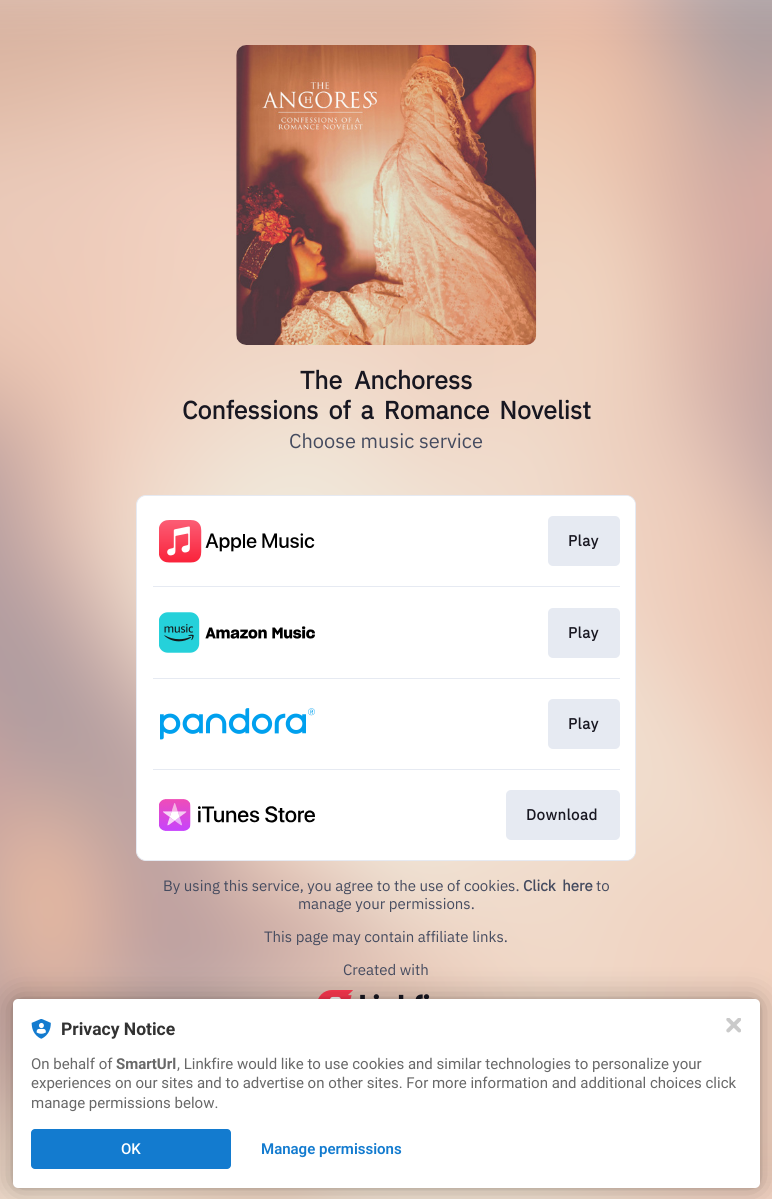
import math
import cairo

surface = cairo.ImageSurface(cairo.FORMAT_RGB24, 772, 1199)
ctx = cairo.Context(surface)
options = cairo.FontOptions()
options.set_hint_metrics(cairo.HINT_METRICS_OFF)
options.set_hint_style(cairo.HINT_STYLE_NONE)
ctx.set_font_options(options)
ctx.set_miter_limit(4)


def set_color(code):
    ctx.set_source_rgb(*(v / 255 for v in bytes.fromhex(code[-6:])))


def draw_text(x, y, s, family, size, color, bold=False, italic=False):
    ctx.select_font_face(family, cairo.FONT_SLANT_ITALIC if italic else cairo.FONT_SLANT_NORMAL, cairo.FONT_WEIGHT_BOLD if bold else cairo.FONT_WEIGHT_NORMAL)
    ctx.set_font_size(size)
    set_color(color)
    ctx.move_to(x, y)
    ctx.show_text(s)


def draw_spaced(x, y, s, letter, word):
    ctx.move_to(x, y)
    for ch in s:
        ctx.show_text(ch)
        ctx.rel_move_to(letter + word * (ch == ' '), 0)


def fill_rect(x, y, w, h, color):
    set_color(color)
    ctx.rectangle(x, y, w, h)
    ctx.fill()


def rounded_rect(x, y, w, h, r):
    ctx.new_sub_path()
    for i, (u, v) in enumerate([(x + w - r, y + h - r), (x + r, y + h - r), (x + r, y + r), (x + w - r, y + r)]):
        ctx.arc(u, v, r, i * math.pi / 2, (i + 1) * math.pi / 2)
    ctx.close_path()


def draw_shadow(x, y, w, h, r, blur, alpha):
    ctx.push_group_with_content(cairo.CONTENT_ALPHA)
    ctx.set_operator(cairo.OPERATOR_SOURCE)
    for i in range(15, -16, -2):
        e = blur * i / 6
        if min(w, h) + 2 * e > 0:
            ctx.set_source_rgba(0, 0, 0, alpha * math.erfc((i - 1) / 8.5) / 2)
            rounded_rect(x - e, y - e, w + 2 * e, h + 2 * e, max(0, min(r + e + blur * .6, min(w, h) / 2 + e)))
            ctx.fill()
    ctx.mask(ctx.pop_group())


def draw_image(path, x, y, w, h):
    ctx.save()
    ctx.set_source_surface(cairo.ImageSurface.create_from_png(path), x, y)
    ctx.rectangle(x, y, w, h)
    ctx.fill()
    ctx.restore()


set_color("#ffffff")
ctx.paint()
draw_image("assets/img1.png", 0, 0, 772, 1199)
draw_image("assets/img2.png", 236, 45, 301, 300)
ctx.select_font_face("IBM Plex Sans", cairo.FONT_SLANT_NORMAL, cairo.FONT_WEIGHT_BOLD)
ctx.set_font_size(25)
set_color("#181721")
draw_spaced(300, 389, "The Anchoress", 0, 6)
draw_spaced(182, 419, "Confessions of a Romance Novelist", 0, 4)
draw_text(289, 448, "Choose music service", "IBM Plex Sans", 20, "#454b5f")
set_color("#ffffff")
rounded_rect(136.5, 495.5, 499, 365, 9.5)
ctx.fill_preserve()
set_color("#e6eaf2")
ctx.set_line_width(1)
ctx.stroke()
set_color("#ffffff")
rounded_rect(138, 496, 497, 364, 9)
ctx.fill()
draw_image("assets/img3.png", 159, 520, 156, 43)
set_color("#e6eaf2")
rounded_rect(548, 516, 72, 50, 5)
ctx.fill()
ctx.select_font_face("IBM Plex Sans", cairo.FONT_SLANT_NORMAL, cairo.FONT_WEIGHT_BOLD)
ctx.set_font_size(15)
set_color("#181721")
draw_spaced(568, 546, "Play", 0.5, 0)
fill_rect(153, 586, 467, 1, "#e6eaf2")
draw_image("assets/img4.png", 159, 612, 156, 41)
rounded_rect(548, 608, 72, 50, 5)
ctx.fill()
set_color("#181721")
draw_spaced(568, 638, "Play", 0.5, 0)
fill_rect(153, 678, 467, 1, "#e6eaf2")
draw_image("assets/img5.png", 160, 708, 155, 32)
rounded_rect(548, 699, 72, 50, 5)
ctx.fill()
set_color("#181721")
draw_spaced(568, 729, "Play", 0.5, 0)
fill_rect(153, 769, 467, 1, "#e6eaf2")
draw_image("assets/img6.png", 159, 799, 156, 32)
rounded_rect(506, 790, 114, 50, 5)
ctx.fill()
set_color("#181721")
draw_spaced(526, 820, "Download", 0.5, 0)
draw_text(163, 891, "By using this service, you agree to the use of cookies.", "IBM Plex Sans", 15, "#454b5f")
ctx.select_font_face("IBM Plex Sans", cairo.FONT_SLANT_NORMAL, cairo.FONT_WEIGHT_BOLD)
draw_spaced(523, 891, "Click here", 0, 3)
draw_text(596, 891, "to", "IBM Plex Sans", 15, "#454b5f")
draw_text(298, 909, "manage your permissions.", "IBM Plex Sans", 15, "#454b5f")
draw_text(264, 942, "This page may contain affiliate links.", "IBM Plex Sans", 15, "#454b5f")
draw_text(343, 975, "Created with", "IBM Plex Sans", 15, "#454b5f")
draw_image("assets/img7.png", 318, 990, 112, 9)
set_color("#000000")
draw_shadow(13, 999, 747, 189, 5, 2.5, 0.12)
draw_shadow(13, 999, 747, 189, 5, 15, 0.3)
set_color("#ffffff")
rounded_rect(13, 999, 747, 189, 5)
ctx.fill()
draw_image("assets/img8.png", 726, 1018, 15, 15)
draw_image("assets/img9.png", 31, 1019, 20, 20)
draw_text(61, 1035, "Privacy Notice", "Roboto", 17.5, "#323232", bold=True)
draw_text(31, 1069, "On behalf of", "Roboto", 15, "#686868")
draw_text(116, 1069, "SmartUrl", "Roboto", 15, "#686868", bold=True)
draw_text(177, 1069, ", Linkfire would like to use cookies and similar technologies to personalize your", "Roboto", 15, "#686868")
draw_text(31, 1088, "experiences on our sites and to advertise on other sites. For more information and additional choices click", "Roboto", 15, "#686868")
draw_text(31, 1108, "manage permissions below.", "Roboto", 15, "#686868")
set_color("#137bcf")
rounded_rect(31, 1129, 200, 40, 4)
ctx.fill()
draw_text(121, 1154, "OK", "Roboto Medium", 15, "#ffffff")
draw_text(261, 1154, "Manage permissions", "Roboto SemiBold", 15, "#137bcf")
surface.write_to_png("output.png")
